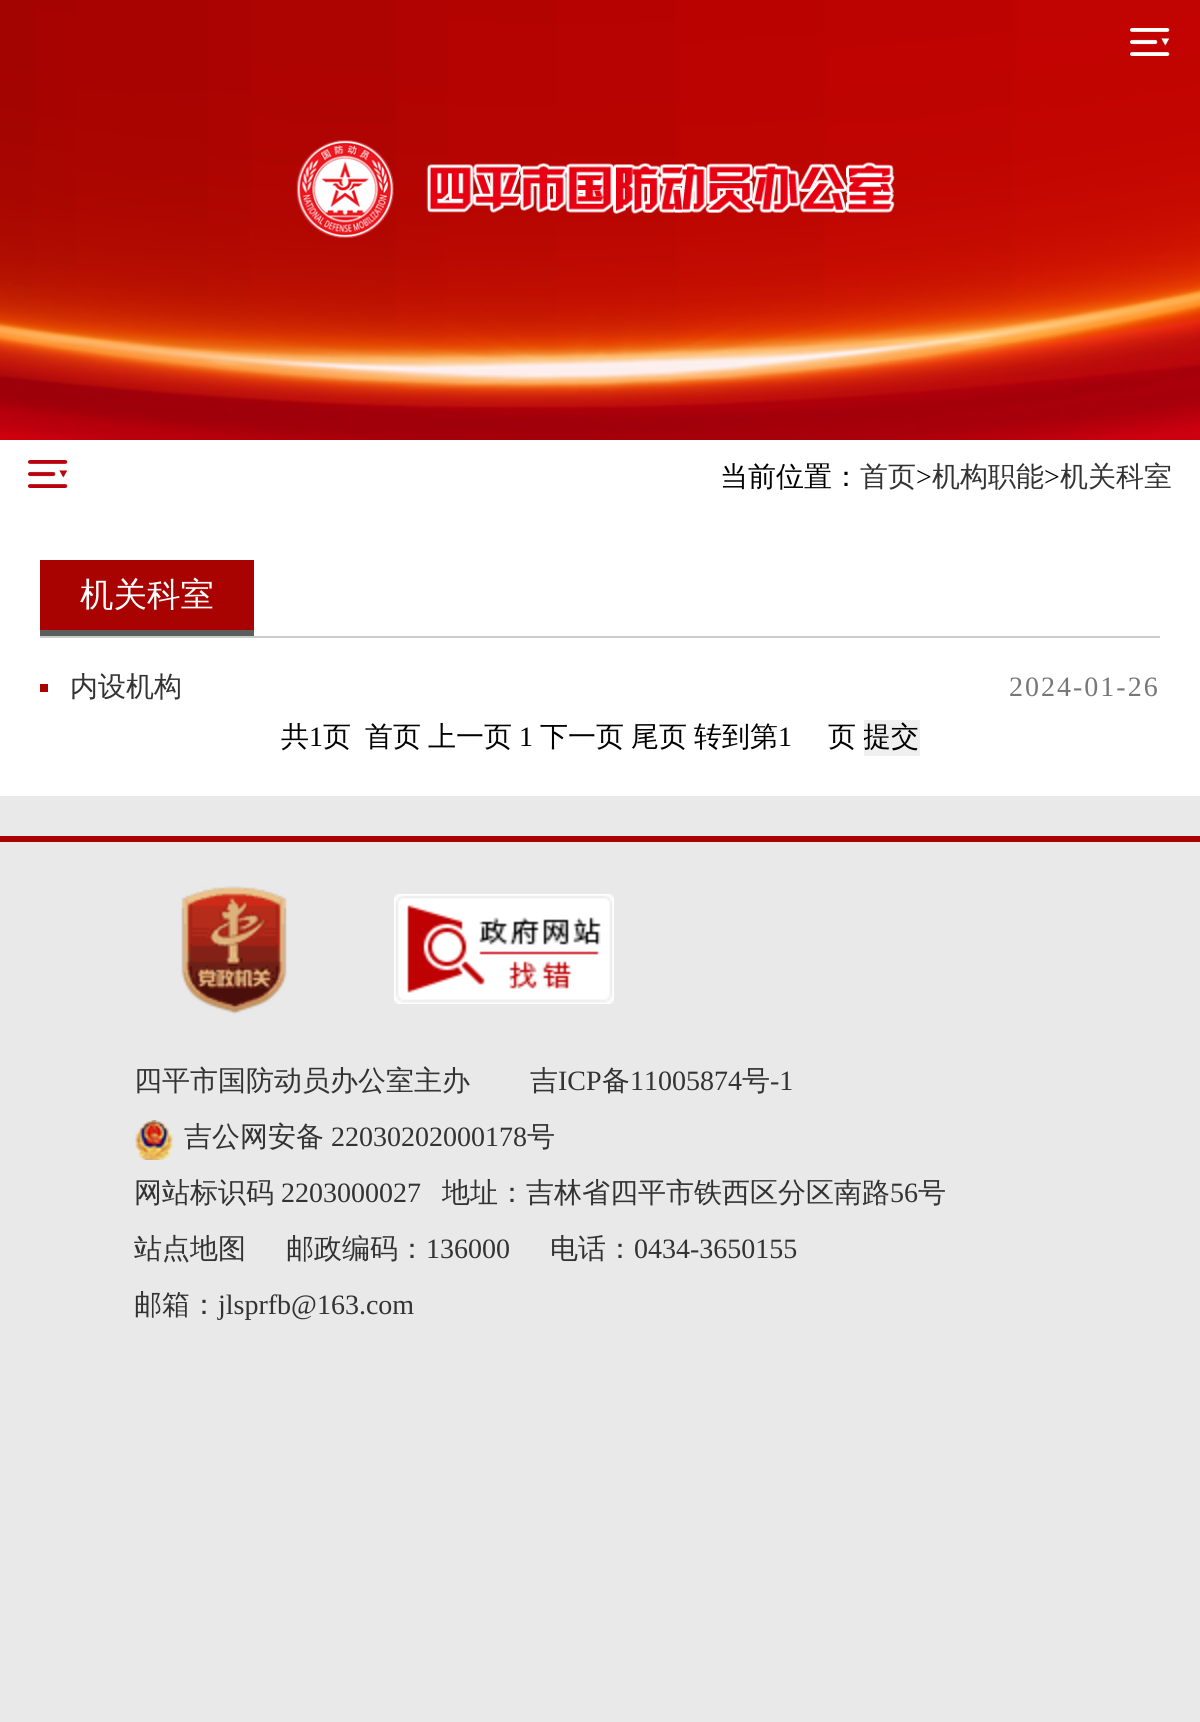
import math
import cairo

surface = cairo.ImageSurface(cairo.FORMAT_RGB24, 1200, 1722)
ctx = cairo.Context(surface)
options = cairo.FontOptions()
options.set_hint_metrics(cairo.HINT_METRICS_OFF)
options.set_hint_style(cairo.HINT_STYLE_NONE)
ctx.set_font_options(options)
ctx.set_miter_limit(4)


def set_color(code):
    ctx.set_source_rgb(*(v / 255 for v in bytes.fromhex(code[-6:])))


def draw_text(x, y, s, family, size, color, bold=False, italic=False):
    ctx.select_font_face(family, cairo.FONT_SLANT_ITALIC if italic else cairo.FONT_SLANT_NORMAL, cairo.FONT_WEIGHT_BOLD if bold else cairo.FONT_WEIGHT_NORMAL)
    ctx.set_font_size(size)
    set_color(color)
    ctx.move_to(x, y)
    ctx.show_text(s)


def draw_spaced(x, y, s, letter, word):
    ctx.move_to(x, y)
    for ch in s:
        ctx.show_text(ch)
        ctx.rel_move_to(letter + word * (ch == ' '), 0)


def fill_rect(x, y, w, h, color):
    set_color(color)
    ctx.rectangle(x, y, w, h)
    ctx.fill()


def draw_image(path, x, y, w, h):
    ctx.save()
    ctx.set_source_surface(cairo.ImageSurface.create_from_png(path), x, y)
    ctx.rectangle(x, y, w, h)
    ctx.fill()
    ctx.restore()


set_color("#e9e9e9")
ctx.paint()
draw_image("assets/img1.png", 0, 0, 1200, 440)
draw_image("assets/img2.png", 296, 140, 599, 98)
draw_image("assets/img3.png", 1130, 28, 40, 28)
fill_rect(0, 440, 1200, 356, "#ffffff")
draw_image("assets/img4.png", 28, 460, 40, 28)
draw_text(720, 486, "当前位置：", "WenQuanYi Zen Hei Medium", 28, "#000000")
draw_text(860, 486, "首页", "WenQuanYi Zen Hei Medium", 28, "#333333")
draw_text(916, 486, ">", "Liberation Serif", 28, "#000000")
draw_text(932, 486, "机构职能", "WenQuanYi Zen Hei Medium", 28, "#333333")
draw_text(1044, 486, ">", "Liberation Serif", 28, "#000000")
draw_text(1060, 486, "机关科室", "WenQuanYi Zen Hei Medium", 28, "#333333")
fill_rect(40, 636, 1120, 2, "#cccccc")
fill_rect(40, 560, 214, 70, "#a80300")
draw_text(80, 606, "机关科室", "WenQuanYi Zen Hei Medium", 33.5, "#ffffff")
fill_rect(40, 630, 214, 6, "#5c5e5d")
fill_rect(40, 684, 8, 8, "#a80300")
draw_text(70, 696, "内设机构", "WenQuanYi Zen Hei Medium", 28, "#333333")
ctx.select_font_face("Liberation Serif")
set_color("#777777")
draw_spaced(1009, 696, "2024-01-26", 2, 0)
draw_text(281, 746, "共", "WenQuanYi Zen Hei Medium", 28, "#000000")
draw_text(309, 746, "1", "Liberation Serif", 28, "#000000")
draw_text(323, 746, "页", "WenQuanYi Zen Hei Medium", 28, "#000000")
draw_text(365, 746, "首页", "WenQuanYi Zen Hei Medium", 28, "#000000")
draw_text(428, 746, "上一页", "WenQuanYi Zen Hei Medium", 28, "#000000")
draw_text(519, 746, "1", "Liberation Serif", 28, "#000000")
draw_text(540, 746, "下一页", "WenQuanYi Zen Hei Medium", 28, "#000000")
draw_text(631, 746, "尾页", "WenQuanYi Zen Hei Medium", 28, "#000000")
draw_text(694, 746, "转到第", "WenQuanYi Zen Hei Medium", 28, "#000000")
draw_text(778, 746, "1", "Liberation Serif", 28, "#000000")
draw_text(828, 746, "页", "WenQuanYi Zen Hei Medium", 28, "#000000")
fill_rect(864, 720, 56, 36, "#efefef")
ctx.save()
ctx.rectangle(864, 720, 56, 36)
ctx.clip()
draw_text(863, 746, "提交", "WenQuanYi Zen Hei Medium", 28, "#000000")
ctx.restore()
fill_rect(0, 836, 1200, 6, "#a80300")
draw_image("assets/img5.png", 181, 886, 106, 129)
draw_image("assets/img6.png", 394, 894, 220, 110)
draw_text(134, 1090, "四平市国防动员办公室主办", "WenQuanYi Zen Hei Medium", 28, "#333333")
draw_text(530, 1090, "吉", "WenQuanYi Zen Hei Medium", 28, "#333333")
draw_text(558, 1090, "ICP", "Liberation Serif", 28, "#333333")
draw_text(602, 1090, "备", "WenQuanYi Zen Hei Medium", 28, "#333333")
draw_text(630, 1090, "11005874", "Liberation Serif", 28, "#333333")
draw_text(742, 1090, "号", "WenQuanYi Zen Hei Medium", 28, "#333333")
draw_text(770, 1090, "-1", "Liberation Serif", 28, "#333333")
draw_image("assets/img7.png", 135, 1120, 38, 40)
draw_text(184, 1146, "吉公网安备", "WenQuanYi Zen Hei Medium", 28, "#333333")
draw_text(331, 1146, "22030202000178", "Liberation Serif", 28, "#333333")
draw_text(527, 1146, "号", "WenQuanYi Zen Hei Medium", 28, "#333333")
draw_text(134, 1202, "网站标识码", "WenQuanYi Zen Hei Medium", 28, "#333333")
draw_text(281, 1202, "2203000027", "Liberation Serif", 28, "#333333")
draw_text(442, 1202, "地址：吉林省四平市铁西区分区南路", "WenQuanYi Zen Hei Medium", 28, "#333333")
draw_text(890, 1202, "56", "Liberation Serif", 28, "#333333")
draw_text(918, 1202, "号", "WenQuanYi Zen Hei Medium", 28, "#333333")
draw_text(134, 1258, "站点地图", "WenQuanYi Zen Hei Medium", 28, "#333333")
draw_text(286, 1258, "邮政编码：", "WenQuanYi Zen Hei Medium", 28, "#333333")
draw_text(426, 1258, "136000", "Liberation Serif", 28, "#333333")
draw_text(550, 1258, "电话：", "WenQuanYi Zen Hei Medium", 28, "#333333")
draw_text(634, 1258, "0434-3650155", "Liberation Serif", 28, "#333333")
draw_text(134, 1314, "邮箱：", "WenQuanYi Zen Hei Medium", 28, "#333333")
draw_text(218, 1314, "jlsprfb@163.com", "Liberation Serif", 28, "#333333")
surface.write_to_png("output.png")
